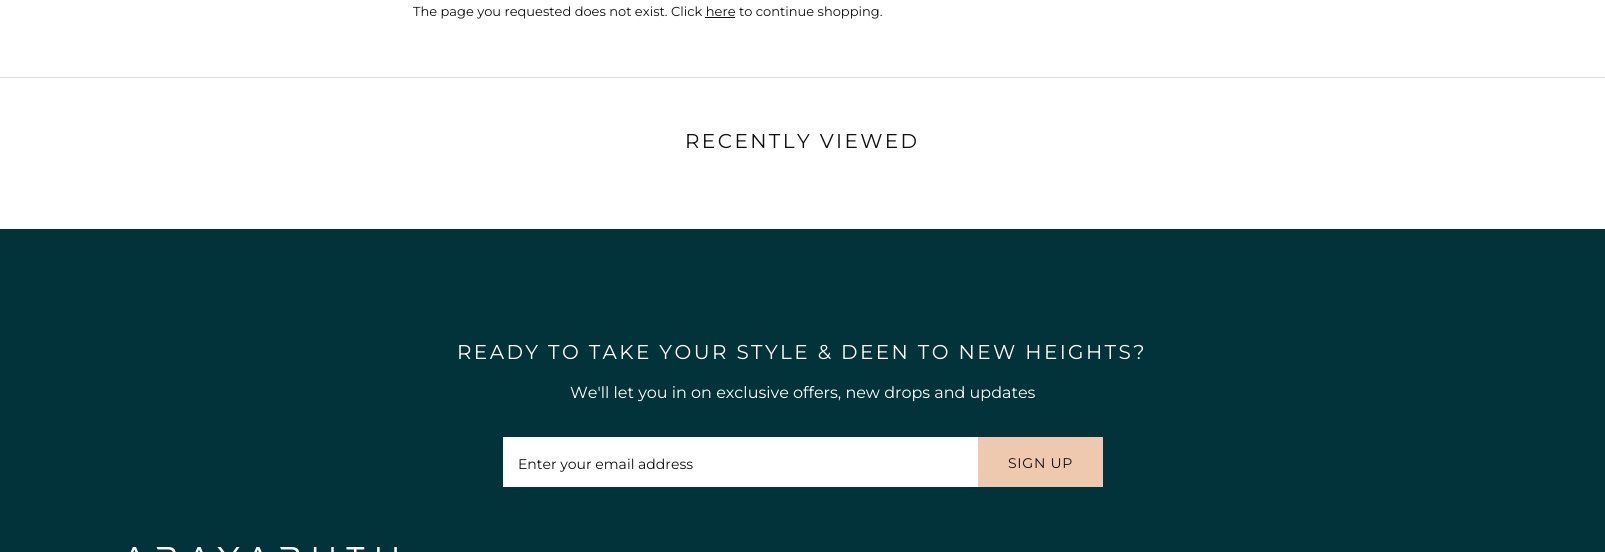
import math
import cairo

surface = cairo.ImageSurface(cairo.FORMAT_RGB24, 1605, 552)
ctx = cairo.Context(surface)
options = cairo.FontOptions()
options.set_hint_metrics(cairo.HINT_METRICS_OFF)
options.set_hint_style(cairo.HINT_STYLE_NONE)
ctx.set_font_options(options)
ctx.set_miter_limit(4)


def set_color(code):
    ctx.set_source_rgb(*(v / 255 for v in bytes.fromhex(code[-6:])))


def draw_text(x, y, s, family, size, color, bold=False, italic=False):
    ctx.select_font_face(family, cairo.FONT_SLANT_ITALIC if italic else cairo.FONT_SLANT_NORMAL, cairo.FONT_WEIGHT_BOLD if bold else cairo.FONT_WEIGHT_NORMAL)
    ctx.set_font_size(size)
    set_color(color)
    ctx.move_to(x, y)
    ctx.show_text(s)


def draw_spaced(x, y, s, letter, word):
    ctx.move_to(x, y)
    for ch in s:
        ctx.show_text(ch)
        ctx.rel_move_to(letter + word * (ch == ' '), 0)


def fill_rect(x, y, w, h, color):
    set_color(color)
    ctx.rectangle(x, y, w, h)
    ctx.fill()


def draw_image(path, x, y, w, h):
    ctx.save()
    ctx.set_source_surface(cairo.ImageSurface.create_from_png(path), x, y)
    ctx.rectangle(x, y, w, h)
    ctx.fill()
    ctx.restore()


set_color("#ffffff")
ctx.paint()
draw_text(413, 16, "The page you requested does not exist. Click here to continue shopping.", "Montserrat Thin", 13, "#111111")
fill_rect(705, 17, 30, 1, "#111111")
fill_rect(0, 77, 1605, 1, "#dddddd")
ctx.set_font_size(20)
set_color("#111111")
draw_spaced(685, 148, "RECENTLY VIEWED", 2.4, 0)
fill_rect(0, 229, 1605, 323, "#02333a")
set_color("#ffffff")
draw_spaced(457, 359, "READY TO TAKE YOUR STYLE & DEEN TO NEW HEIGHTS?", 2.4, 0)
draw_text(570, 398, "We'll let you in on exclusive offers, new drops and updates", "Montserrat Thin", 16, "#ffffff")
fill_rect(503, 437, 475, 50, "#ffffff")
draw_text(518, 469, "Enter your email address", "Montserrat Thin", 14, "#111111")
fill_rect(978, 437, 125, 50, "#eec9af")
set_color("#111111")
draw_spaced(1008, 468, "SIGN UP", 0.75, 0)
draw_image("assets/img1.png", 130, 547, 267, 5)
surface.write_to_png("output.png")
